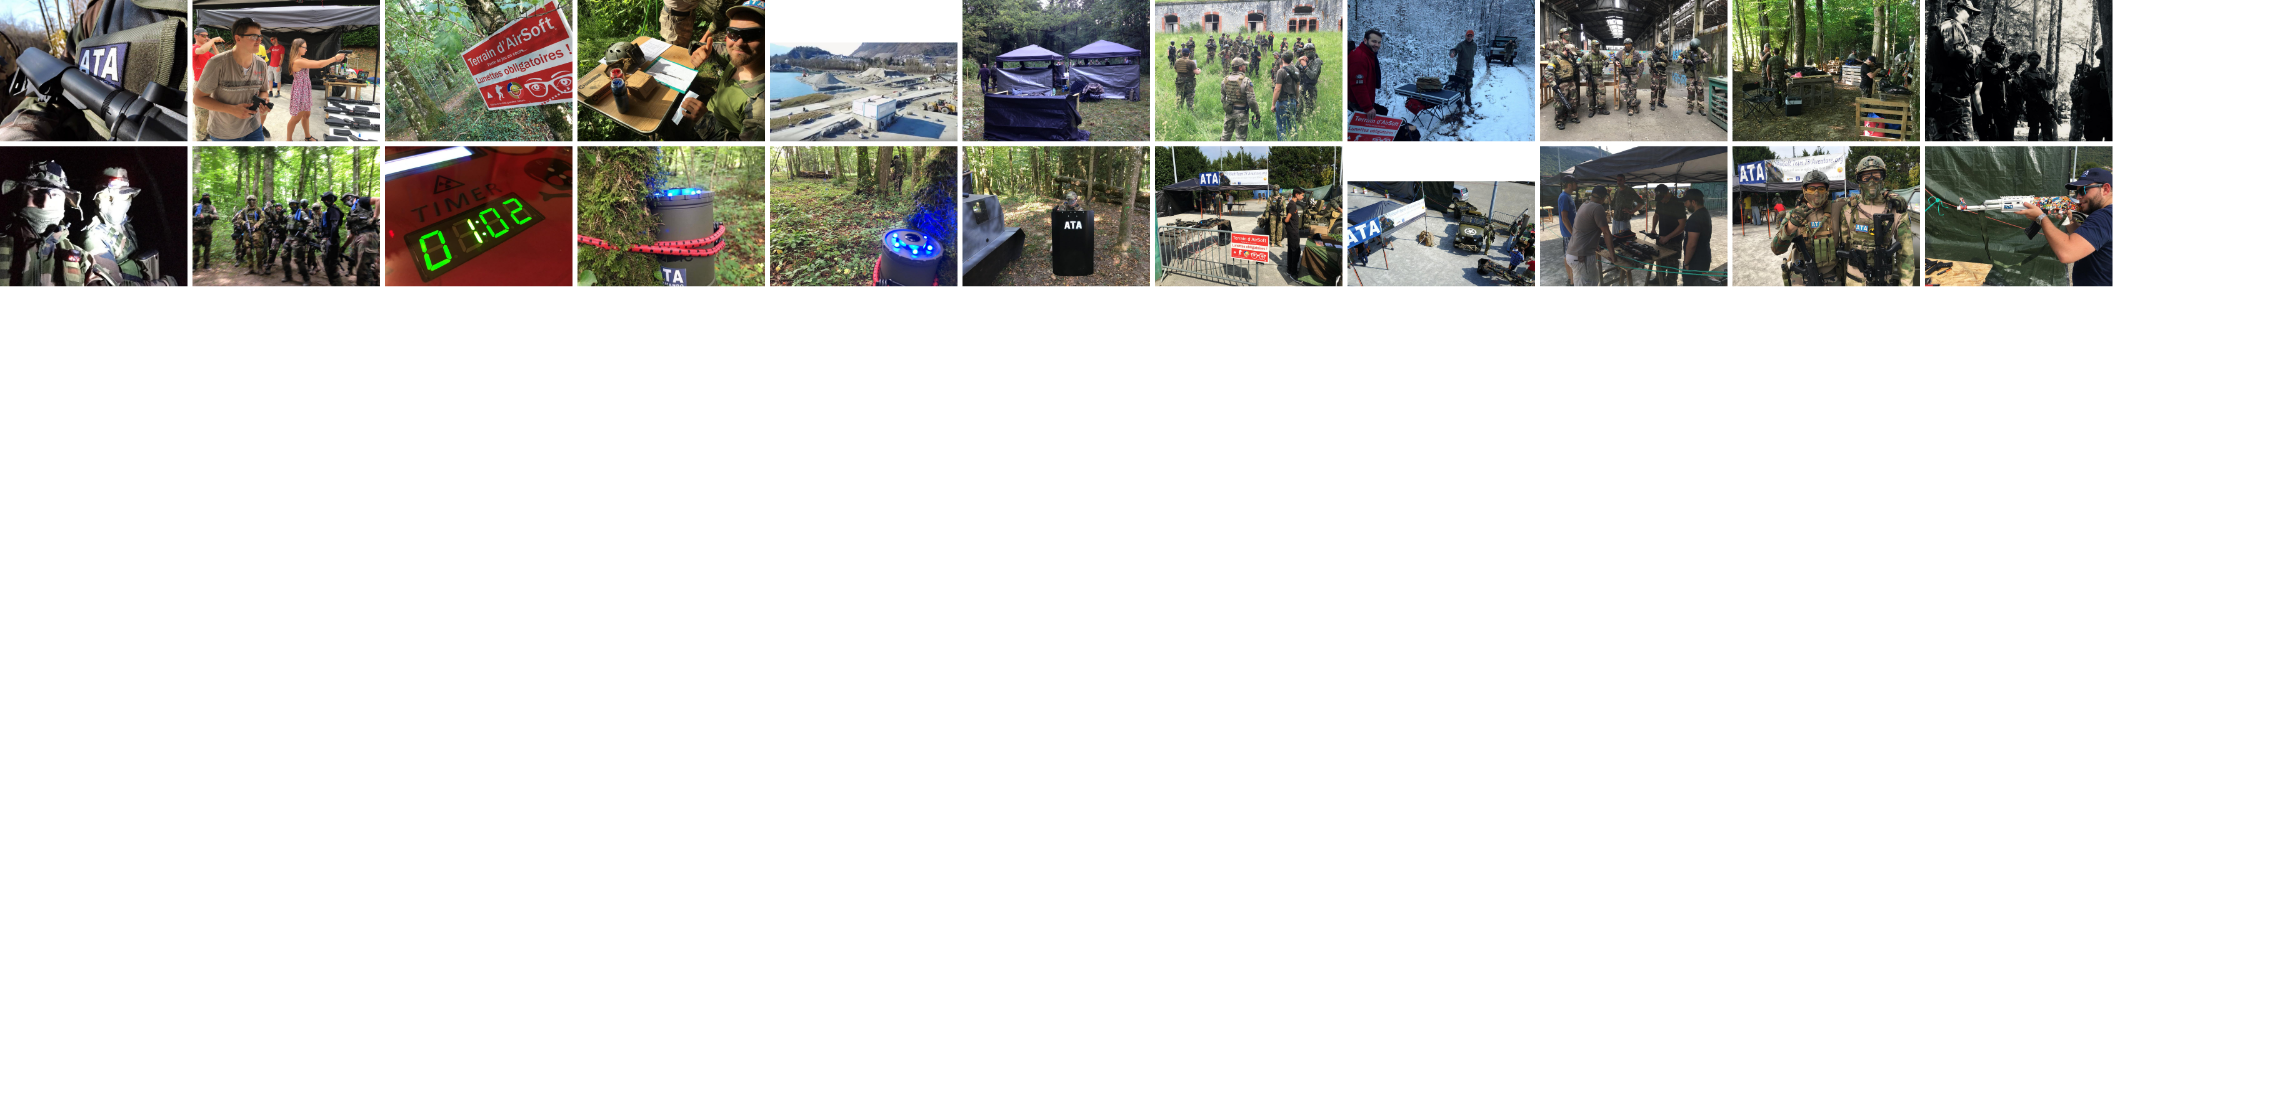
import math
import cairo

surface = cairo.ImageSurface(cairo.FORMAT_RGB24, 2293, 1093)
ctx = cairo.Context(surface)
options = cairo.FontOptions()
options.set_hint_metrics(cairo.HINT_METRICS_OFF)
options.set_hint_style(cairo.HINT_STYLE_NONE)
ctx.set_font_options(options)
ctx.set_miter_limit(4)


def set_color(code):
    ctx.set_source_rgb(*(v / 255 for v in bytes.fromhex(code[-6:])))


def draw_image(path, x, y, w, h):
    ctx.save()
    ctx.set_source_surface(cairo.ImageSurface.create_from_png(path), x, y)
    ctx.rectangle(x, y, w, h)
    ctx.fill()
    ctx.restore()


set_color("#ffffff")
ctx.paint()
draw_image("assets/img1.png", 0, 0, 188, 142)
draw_image("assets/img2.png", 192, 0, 188, 142)
draw_image("assets/img3.png", 385, 0, 188, 142)
draw_image("assets/img4.png", 577, 0, 188, 142)
draw_image("assets/img5.png", 770, 42, 188, 100)
draw_image("assets/img6.png", 962, 0, 188, 142)
draw_image("assets/img7.png", 1155, 0, 188, 142)
draw_image("assets/img8.png", 1347, 0, 188, 142)
draw_image("assets/img9.png", 1540, 0, 188, 142)
draw_image("assets/img10.png", 1732, 0, 188, 142)
draw_image("assets/img11.png", 1925, 0, 188, 142)
draw_image("assets/img12.png", 0, 146, 188, 141)
draw_image("assets/img13.png", 192, 146, 188, 141)
draw_image("assets/img14.png", 385, 146, 188, 141)
draw_image("assets/img15.png", 577, 146, 188, 141)
draw_image("assets/img16.png", 770, 146, 188, 141)
draw_image("assets/img17.png", 962, 146, 188, 141)
draw_image("assets/img18.png", 1155, 146, 188, 141)
draw_image("assets/img19.png", 1347, 181, 188, 106)
draw_image("assets/img20.png", 1540, 146, 188, 141)
draw_image("assets/img21.png", 1732, 146, 188, 141)
draw_image("assets/img22.png", 1925, 146, 188, 141)
surface.write_to_png("output.png")
